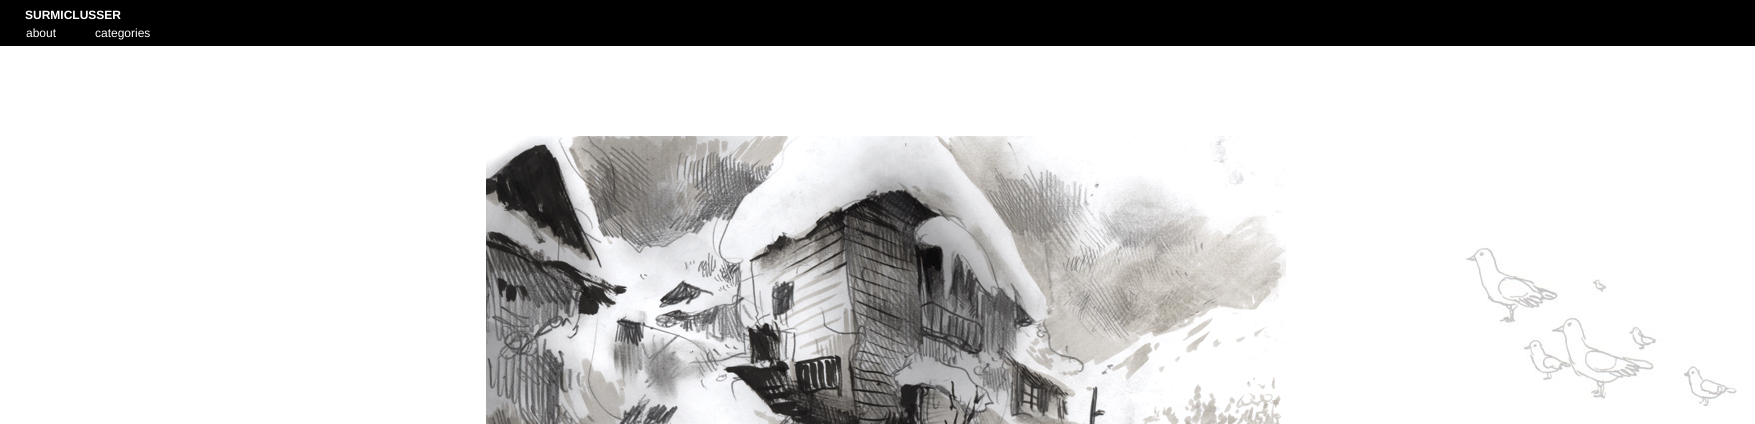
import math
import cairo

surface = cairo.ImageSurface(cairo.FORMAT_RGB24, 1755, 424)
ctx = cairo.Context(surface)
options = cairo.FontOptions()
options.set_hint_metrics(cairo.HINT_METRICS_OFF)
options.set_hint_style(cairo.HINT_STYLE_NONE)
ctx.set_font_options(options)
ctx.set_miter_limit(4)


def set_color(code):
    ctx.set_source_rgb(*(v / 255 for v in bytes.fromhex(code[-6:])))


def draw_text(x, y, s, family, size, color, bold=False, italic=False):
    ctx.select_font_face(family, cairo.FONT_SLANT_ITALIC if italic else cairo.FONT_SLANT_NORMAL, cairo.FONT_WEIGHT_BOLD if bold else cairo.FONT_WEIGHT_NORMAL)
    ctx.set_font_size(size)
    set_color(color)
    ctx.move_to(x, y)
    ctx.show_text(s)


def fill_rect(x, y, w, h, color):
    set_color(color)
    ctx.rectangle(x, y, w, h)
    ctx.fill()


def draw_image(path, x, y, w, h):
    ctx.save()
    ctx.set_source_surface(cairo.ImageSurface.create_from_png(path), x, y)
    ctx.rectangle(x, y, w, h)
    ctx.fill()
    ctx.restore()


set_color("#ffffff")
ctx.paint()
draw_image("assets/img1.png", 1464, 247, 273, 160)
fill_rect(0, 0, 1755, 46, "#000000")
draw_text(25, 19, "SURMICLUSSER", "Liberation Sans", 12, "#ffffff", bold=True)
draw_text(26, 37, "about", "Liberation Sans", 12, "#ffffff")
draw_text(95, 37, "categories", "Liberation Sans", 12, "#ffffff")
draw_image("assets/img2.png", 486, 136, 800, 288)
surface.write_to_png("output.png")
